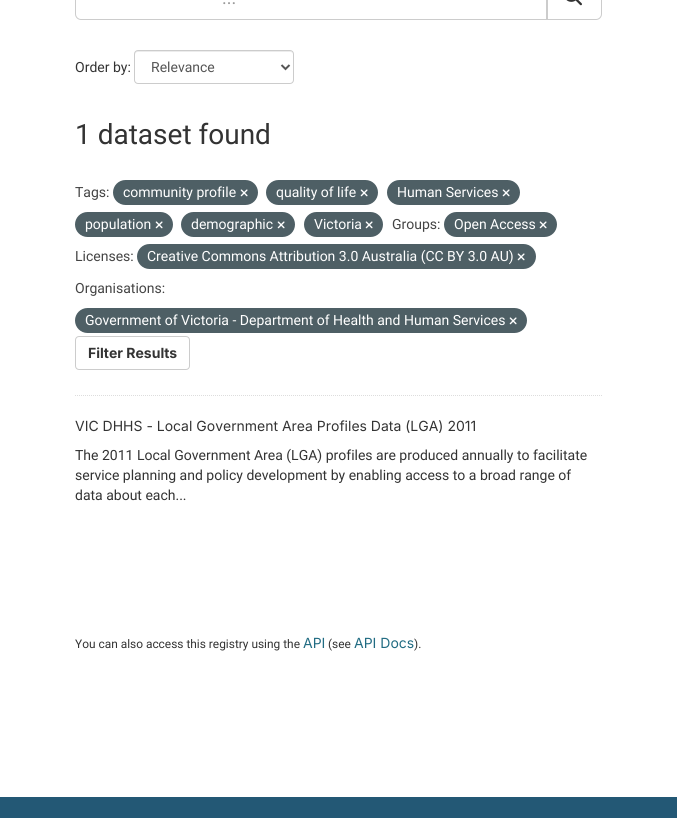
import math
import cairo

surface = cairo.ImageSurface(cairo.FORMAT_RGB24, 677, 818)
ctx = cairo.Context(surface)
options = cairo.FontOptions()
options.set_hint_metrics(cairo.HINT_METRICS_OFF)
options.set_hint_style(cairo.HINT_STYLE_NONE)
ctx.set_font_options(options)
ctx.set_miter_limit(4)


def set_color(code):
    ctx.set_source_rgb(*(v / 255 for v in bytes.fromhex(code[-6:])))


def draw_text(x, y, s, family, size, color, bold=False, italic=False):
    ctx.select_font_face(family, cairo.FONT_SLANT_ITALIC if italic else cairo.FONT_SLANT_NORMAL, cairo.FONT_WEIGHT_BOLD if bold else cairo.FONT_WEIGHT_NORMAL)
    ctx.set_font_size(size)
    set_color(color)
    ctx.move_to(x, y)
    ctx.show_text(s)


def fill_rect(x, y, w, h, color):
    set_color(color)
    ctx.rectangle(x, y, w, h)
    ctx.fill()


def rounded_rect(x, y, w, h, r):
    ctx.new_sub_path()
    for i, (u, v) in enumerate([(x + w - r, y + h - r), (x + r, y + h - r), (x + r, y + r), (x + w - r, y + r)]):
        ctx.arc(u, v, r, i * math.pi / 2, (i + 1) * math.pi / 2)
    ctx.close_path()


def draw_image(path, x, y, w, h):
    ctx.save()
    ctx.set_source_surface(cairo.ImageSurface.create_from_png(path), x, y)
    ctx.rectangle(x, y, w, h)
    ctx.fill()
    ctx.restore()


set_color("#ffffff")
ctx.paint()
ctx.new_path()
ctx.move_to(75, 395.5)
ctx.line_to(602, 395.5)
set_color("#dddddd")
ctx.set_line_width(1)
ctx.set_dash([1, 1])
ctx.stroke()
ctx.new_path()
ctx.move_to(81, -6.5)
ctx.line_to(546.5, -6.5)
ctx.line_to(546.5, 19.5)
ctx.line_to(81, 19.5)
ctx.curve_to(78, 19.5, 75.5, 17, 75.5, 14)
ctx.line_to(75.5, -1)
ctx.curve_to(75.5, -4, 78, -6.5, 81, -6.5)
ctx.close_path()
set_color("#cccccc")
ctx.set_dash([])
ctx.stroke()
draw_text(222, 4, "...", "Roboto", 18, "#999999")
ctx.new_path()
ctx.move_to(547.5, -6.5)
ctx.line_to(596, -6.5)
ctx.curve_to(599, -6.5, 601.5, -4, 601.5, -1)
ctx.line_to(601.5, 14)
ctx.curve_to(601.5, 17, 599, 19.5, 596, 19.5)
ctx.line_to(547.5, 19.5)
ctx.close_path()
set_color("#cccccc")
ctx.stroke()
draw_image("assets/img1.png", 566, 0, 16, 6)
draw_text(75, 72, "Order by:", "Roboto", 14, "#333333")
set_color("#ececec")
ctx.new_path()
ctx.move_to(138, 52)
ctx.line_to(290, 52)
ctx.curve_to(292, 52, 293, 53, 293, 55)
ctx.curve_to(293, 53, 292, 51, 290, 51)
ctx.line_to(137, 51)
ctx.curve_to(135, 51, 135, 53, 135, 55)
ctx.curve_to(135, 53, 136, 52, 138, 52)
ctx.close_path()
ctx.fill()
rounded_rect(134.5, 50.5, 159, 33, 3.5)
set_color("#cccccc")
ctx.stroke()
ctx.new_path()
ctx.move_to(281.5, 65)
ctx.line_to(285.5, 69)
ctx.line_to(289.5, 65)
set_color("#555555")
ctx.set_line_width(2)
ctx.stroke()
draw_text(151, 72, "Relevance", "Roboto", 14, "#555555")
draw_text(75, 144, "1 dataset found", "Roboto", 28, "#333333")
draw_text(75, 197, "Tags:", "Roboto", 14, "#444444")
set_color("#4e5f65")
rounded_rect(113, 180, 145, 25, 12.5)
ctx.fill()
draw_text(123, 197, "community profile", "Roboto", 14, "#ffffff")
draw_image("assets/img2.png", 240, 189, 8, 8)
set_color("#4e5f65")
rounded_rect(266, 180, 112, 25, 12.5)
ctx.fill()
draw_text(276, 197, "quality of life", "Roboto", 14, "#ffffff")
draw_image("assets/img2.png", 360, 189, 8, 8)
set_color("#4e5f65")
rounded_rect(387, 180, 133, 25, 12.5)
ctx.fill()
draw_text(397, 197, "Human Services", "Roboto", 14, "#ffffff")
draw_image("assets/img2.png", 502, 189, 8, 8)
set_color("#4e5f65")
rounded_rect(75, 212, 98, 25, 12.5)
ctx.fill()
draw_text(85, 229, "population", "Roboto", 14, "#ffffff")
draw_image("assets/img2.png", 155, 221, 8, 8)
set_color("#4e5f65")
rounded_rect(181, 212, 114, 25, 12.5)
ctx.fill()
draw_text(191, 229, "demographic", "Roboto", 14, "#ffffff")
draw_image("assets/img2.png", 277, 221, 8, 8)
set_color("#4e5f65")
rounded_rect(304, 212, 79, 25, 12.5)
ctx.fill()
draw_text(314, 229, "Victoria", "Roboto", 14, "#ffffff")
draw_image("assets/img2.png", 365, 221, 8, 8)
draw_text(392, 229, "Groups:", "Roboto", 14, "#444444")
set_color("#4e5f65")
rounded_rect(444, 212, 113, 25, 12.5)
ctx.fill()
draw_text(454, 229, "Open Access", "Roboto", 14, "#ffffff")
draw_image("assets/img2.png", 539, 221, 8, 8)
draw_text(75, 261, "Licenses:", "Roboto", 14, "#444444")
set_color("#4e5f65")
rounded_rect(137, 244, 399, 25, 12.5)
ctx.fill()
draw_text(147, 261, "Creative Commons Attribution 3.0 Australia (CC BY 3.0 AU)", "Roboto", 14, "#ffffff")
draw_image("assets/img2.png", 517, 253, 8, 8)
draw_text(75, 293, "Organisations:", "Roboto", 14, "#444444")
set_color("#4e5f65")
rounded_rect(75, 308, 452, 25, 12.5)
ctx.fill()
draw_text(85, 325, "Government of Victoria - Department of Health and Human Services", "Roboto", 14, "#ffffff")
draw_image("assets/img2.png", 509, 317, 8, 8)
rounded_rect(75.5, 336.5, 114, 33, 3.5)
set_color("#cccccc")
ctx.set_line_width(1)
ctx.stroke()
draw_text(88, 358, "Filter Results", "Inter", 14, "#333333", bold=True)
draw_text(75, 431, "VIC DHHS - Local Government Area Profiles Data (LGA) 2011", "Inter", 14, "#333333")
draw_text(75, 460, "The 2011 Local Government Area (LGA) profiles are produced annually to facilitate", "Roboto", 14, "#333333")
draw_text(75, 480, "service planning and policy development by enabling access to a broad range of", "Roboto", 14, "#333333")
draw_text(75, 500, "data about each...", "Roboto", 14, "#333333")
draw_text(75, 648, "You can also access this registry using the", "Roboto", 11.9, "#333333")
draw_text(303, 648, "API", "Inter", 14, "#206b82")
draw_text(328, 648, "(see", "Roboto", 11.9, "#333333")
draw_text(354, 648, "API Docs", "Inter", 14, "#206b82")
draw_text(414, 648, ").", "Roboto", 11.9, "#333333")
fill_rect(0, 797, 677, 21, "#235875")
surface.write_to_png("output.png")
